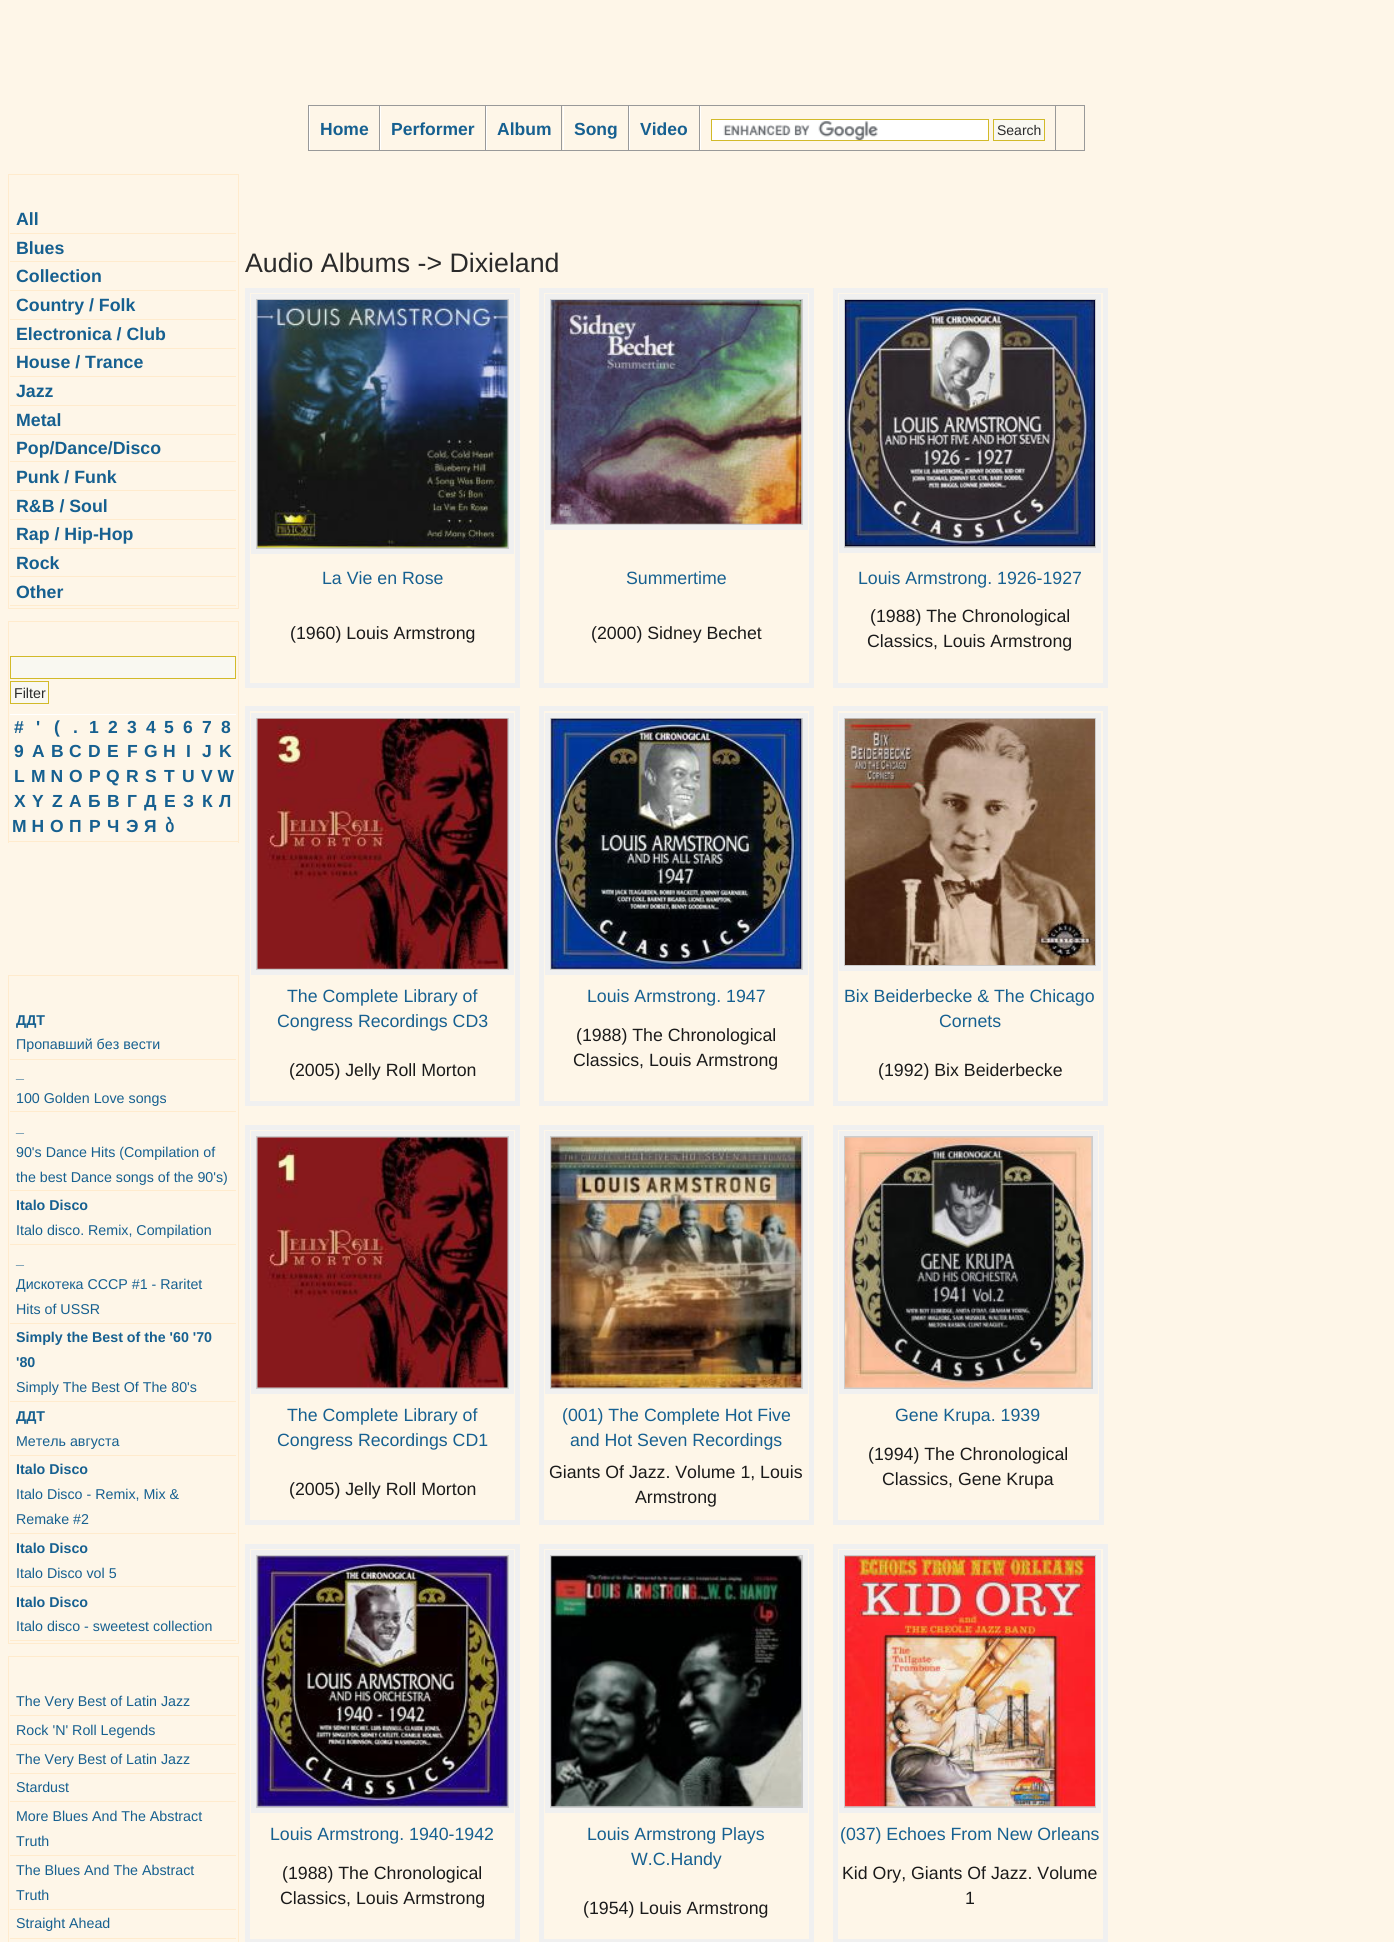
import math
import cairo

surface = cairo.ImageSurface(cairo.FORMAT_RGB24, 1394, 1942)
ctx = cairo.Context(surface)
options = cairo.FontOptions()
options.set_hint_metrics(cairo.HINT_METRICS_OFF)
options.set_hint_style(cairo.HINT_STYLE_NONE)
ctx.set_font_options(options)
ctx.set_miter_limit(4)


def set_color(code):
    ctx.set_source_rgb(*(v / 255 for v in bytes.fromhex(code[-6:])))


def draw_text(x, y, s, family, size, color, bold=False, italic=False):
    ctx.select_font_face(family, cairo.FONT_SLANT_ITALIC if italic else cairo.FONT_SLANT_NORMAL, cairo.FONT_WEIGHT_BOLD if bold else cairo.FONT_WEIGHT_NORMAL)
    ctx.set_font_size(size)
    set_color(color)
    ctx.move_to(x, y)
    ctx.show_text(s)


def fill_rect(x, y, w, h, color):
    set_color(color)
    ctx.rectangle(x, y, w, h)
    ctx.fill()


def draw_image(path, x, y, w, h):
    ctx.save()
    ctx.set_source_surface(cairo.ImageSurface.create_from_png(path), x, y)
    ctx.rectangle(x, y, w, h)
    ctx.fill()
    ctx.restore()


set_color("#fef6e8")
ctx.paint()
ctx.rectangle(308.5, 105.5, 776, 45)
set_color("#999999")
ctx.set_line_width(1)
ctx.stroke()
fill_rect(379, 106, 1, 44, "#999999")
fill_rect(309, 106, 1, 44, "#ffffff")
draw_text(320, 135, "Home", "Liberation Sans", 17.5, "#166090", bold=True)
fill_rect(485, 106, 1, 44, "#999999")
fill_rect(380, 106, 1, 44, "#ffffff")
draw_text(391, 135, "Performer", "Liberation Sans", 17.5, "#166090", bold=True)
fill_rect(561, 106, 1, 44, "#999999")
fill_rect(486, 106, 1, 44, "#ffffff")
draw_text(497, 135, "Album", "Liberation Sans", 17.5, "#166090", bold=True)
fill_rect(628, 106, 1, 44, "#999999")
fill_rect(563, 106, 1, 44, "#ffffff")
draw_text(574, 135, "Song", "Liberation Sans", 17.5, "#166090", bold=True)
fill_rect(699, 106, 1, 44, "#999999")
fill_rect(629, 106, 1, 44, "#ffffff")
draw_text(640, 135, "Video", "Liberation Sans", 17.5, "#166090", bold=True)
fill_rect(1055, 106, 1, 44, "#999999")
fill_rect(700, 106, 1, 44, "#ffffff")
fill_rect(712, 120, 276, 20, "#ffffff")
draw_image("assets/img1.png", 723, 121, 155, 19)
ctx.rectangle(711.5, 119.5, 277, 21)
set_color("#d2ba29")
ctx.stroke()
set_color("#f9f8f1")
ctx.rectangle(993.5, 119.5, 51, 21)
ctx.fill_preserve()
set_color("#d2ba29")
ctx.stroke()
draw_text(997, 135, "Search", "Liberation Sans", 14, "#2a2a2a")
fill_rect(8, 174, 231, 1, "#ffebcd")
fill_rect(238, 174, 1, 435, "#ffebcd")
fill_rect(8, 608, 231, 1, "#ffebcd")
fill_rect(8, 174, 1, 435, "#ffebcd")
fill_rect(10, 233, 226, 1, "#ffebcd")
draw_text(16, 225, "All", "Liberation Sans", 17.75, "#166090", bold=True)
fill_rect(10, 261, 226, 1, "#ffebcd")
draw_text(16, 254, "Blues", "Liberation Sans", 17.75, "#166090", bold=True)
fill_rect(10, 290, 226, 1, "#ffebcd")
draw_text(16, 282, "Collection", "Liberation Sans", 17.75, "#166090", bold=True)
fill_rect(10, 319, 226, 1, "#ffebcd")
draw_text(16, 311, "Country / Folk", "Liberation Sans", 17.75, "#166090", bold=True)
fill_rect(10, 348, 226, 1, "#ffebcd")
draw_text(16, 340, "Electronica / Club", "Liberation Sans", 17.75, "#166090", bold=True)
fill_rect(10, 376, 226, 1, "#ffebcd")
draw_text(16, 368, "House / Trance", "Liberation Sans", 17.75, "#166090", bold=True)
fill_rect(10, 405, 226, 1, "#ffebcd")
draw_text(16, 397, "Jazz", "Liberation Sans", 17.75, "#166090", bold=True)
fill_rect(10, 434, 226, 1, "#ffebcd")
draw_text(16, 426, "Metal", "Liberation Sans", 17.75, "#166090", bold=True)
fill_rect(10, 461, 226, 1, "#ffebcd")
draw_text(16, 454, "Pop/Dance/Disco", "Liberation Sans", 17.75, "#166090", bold=True)
fill_rect(10, 490, 226, 1, "#ffebcd")
draw_text(16, 483, "Punk / Funk", "Liberation Sans", 17.75, "#166090", bold=True)
fill_rect(10, 519, 226, 1, "#ffebcd")
draw_text(16, 512, "R&B / Soul", "Liberation Sans", 17.75, "#166090", bold=True)
fill_rect(10, 548, 226, 1, "#ffebcd")
draw_text(16, 540, "Rap / Hip-Hop", "Liberation Sans", 17.75, "#166090", bold=True)
fill_rect(10, 576, 226, 1, "#ffebcd")
draw_text(16, 569, "Rock", "Liberation Sans", 17.75, "#166090", bold=True)
fill_rect(10, 605, 226, 1, "#ffebcd")
draw_text(16, 598, "Other", "Liberation Sans", 17.75, "#166090", bold=True)
fill_rect(8, 621, 231, 1, "#ffebcd")
fill_rect(238, 621, 1, 222, "#ffebcd")
fill_rect(8, 841, 231, 1, "#ffebcd")
fill_rect(8, 621, 1, 222, "#ffebcd")
set_color("#f9f8f1")
ctx.rectangle(10.5, 656.5, 225, 22)
ctx.fill_preserve()
set_color("#d2ba29")
ctx.stroke()
set_color("#f9f8f1")
ctx.rectangle(10.5, 681.5, 38, 22)
ctx.fill_preserve()
set_color("#d2ba29")
ctx.stroke()
draw_text(14, 698, "Filter", "Liberation Sans", 14.25, "#2a2a2a")
fill_rect(10, 714, 226, 1, "#ffffff")
draw_text(14, 733, "#", "Liberation Sans", 17.5, "#166090", bold=True)
draw_text(36, 733, "'", "Liberation Sans", 17.5, "#166090", bold=True)
draw_text(54, 733, "(", "Liberation Sans", 17.5, "#166090", bold=True)
draw_text(73, 733, ".", "Liberation Sans", 17.5, "#166090", bold=True)
draw_text(89, 733, "1", "Liberation Sans", 17.5, "#166090", bold=True)
draw_text(108, 733, "2", "Liberation Sans", 17.5, "#166090", bold=True)
draw_text(127, 733, "3", "Liberation Sans", 17.5, "#166090", bold=True)
draw_text(146, 733, "4", "Liberation Sans", 17.5, "#166090", bold=True)
draw_text(164, 733, "5", "Liberation Sans", 17.5, "#166090", bold=True)
draw_text(183, 733, "6", "Liberation Sans", 17.5, "#166090", bold=True)
draw_text(202, 733, "7", "Liberation Sans", 17.5, "#166090", bold=True)
draw_text(221, 733, "8", "Liberation Sans", 17.5, "#166090", bold=True)
draw_text(14, 757, "9", "Liberation Sans", 17.5, "#166090", bold=True)
draw_text(32, 757, "A", "Liberation Sans", 17.5, "#166090", bold=True)
draw_text(51, 757, "B", "Liberation Sans", 17.5, "#166090", bold=True)
draw_text(69, 757, "C", "Liberation Sans", 17.5, "#166090", bold=True)
draw_text(88, 757, "D", "Liberation Sans", 17.5, "#166090", bold=True)
draw_text(107, 757, "E", "Liberation Sans", 17.5, "#166090", bold=True)
draw_text(127, 757, "F", "Liberation Sans", 17.5, "#166090", bold=True)
draw_text(144, 757, "G", "Liberation Sans", 17.5, "#166090", bold=True)
draw_text(163, 757, "H", "Liberation Sans", 17.5, "#166090", bold=True)
draw_text(186, 757, "I", "Liberation Sans", 17.5, "#166090", bold=True)
draw_text(202, 757, "J", "Liberation Sans", 17.5, "#166090", bold=True)
draw_text(219, 757, "K", "Liberation Sans", 17.5, "#166090", bold=True)
draw_text(14, 782, "L", "Liberation Sans", 17.5, "#166090", bold=True)
draw_text(31, 782, "M N", "Liberation Sans", 17.5, "#166090", bold=True)
draw_text(69, 782, "O", "Liberation Sans", 17.5, "#166090", bold=True)
draw_text(89, 782, "P", "Liberation Sans", 17.5, "#166090", bold=True)
draw_text(106, 782, "Q", "Liberation Sans", 17.5, "#166090", bold=True)
draw_text(126, 782, "R", "Liberation Sans", 17.5, "#166090", bold=True)
draw_text(145, 782, "S", "Liberation Sans", 17.5, "#166090", bold=True)
draw_text(164, 782, "T", "Liberation Sans", 17.5, "#166090", bold=True)
draw_text(182, 782, "U", "Liberation Sans", 17.5, "#166090", bold=True)
draw_text(201, 782, "V W", "Liberation Sans", 17.5, "#166090", bold=True)
draw_text(14, 807, "X", "Liberation Sans", 17.5, "#166090", bold=True)
draw_text(32, 807, "Y", "Liberation Sans", 17.5, "#166090", bold=True)
draw_text(52, 807, "Z", "Liberation Sans", 17.5, "#166090", bold=True)
draw_text(69, 807, "А", "Liberation Sans", 17.5, "#166090", bold=True)
draw_text(88, 807, "Б", "Liberation Sans", 17.5, "#166090", bold=True)
draw_text(107, 807, "В", "Liberation Sans", 17.5, "#166090", bold=True)
draw_text(127, 807, "Г", "Liberation Sans", 17.5, "#166090", bold=True)
draw_text(144, 807, "Д", "Liberation Sans", 17.5, "#166090", bold=True)
draw_text(164, 807, "Е", "Liberation Sans", 17.5, "#166090", bold=True)
draw_text(183, 807, "З", "Liberation Sans", 17.5, "#166090", bold=True)
draw_text(202, 807, "К", "Liberation Sans", 17.5, "#166090", bold=True)
draw_text(219, 807, "Л", "Liberation Sans", 17.5, "#166090", bold=True)
draw_text(12, 832, "М Н", "Liberation Sans", 17.5, "#166090", bold=True)
draw_text(50, 832, "О", "Liberation Sans", 17.5, "#166090", bold=True)
draw_text(69, 832, "П", "Liberation Sans", 17.5, "#166090", bold=True)
draw_text(89, 832, "Р", "Liberation Sans", 17.5, "#166090", bold=True)
draw_text(107, 832, "Ч", "Liberation Sans", 17.5, "#166090", bold=True)
draw_text(126, 832, "Э", "Liberation Sans", 17.5, "#166090", bold=True)
draw_text(144, 832, "Я", "Liberation Sans", 17.5, "#166090", bold=True)
draw_text(165, 832, "ბ", "DejaVu Sans", 17.5, "#166090", bold=True)
fill_rect(8, 975, 231, 1, "#ffebcd")
fill_rect(238, 975, 1, 669, "#ffebcd")
fill_rect(8, 1643, 231, 1, "#ffebcd")
fill_rect(8, 975, 1, 669, "#ffebcd")
fill_rect(10, 1059, 226, 1, "#ffebcd")
draw_text(16, 1025, "ДДТ", "Liberation Sans", 14.25, "#166090", bold=True)
draw_text(16, 1049, "Пропавший без вести", "Liberation Sans", 14.25, "#166090")
fill_rect(10, 1111, 226, 1, "#ffebcd")
draw_text(16, 1078, "_", "Liberation Sans", 14.25, "#166090", bold=True)
draw_text(16, 1103, "100 Golden Love songs", "Liberation Sans", 14.25, "#166090")
fill_rect(10, 1190, 226, 1, "#ffebcd")
draw_text(16, 1132, "_", "Liberation Sans", 14.25, "#166090", bold=True)
draw_text(16, 1157, "90's Dance Hits (Compilation of", "Liberation Sans", 14.25, "#166090")
draw_text(16, 1182, "the best Dance songs of the 90's)", "Liberation Sans", 14.25, "#166090")
fill_rect(10, 1244, 226, 1, "#ffebcd")
draw_text(16, 1210, "Italo Disco", "Liberation Sans", 14.25, "#166090", bold=True)
draw_text(16, 1235, "Italo disco. Remix, Compilation", "Liberation Sans", 14.25, "#166090")
fill_rect(10, 1323, 226, 1, "#ffebcd")
draw_text(16, 1264, "_", "Liberation Sans", 14.25, "#166090", bold=True)
draw_text(16, 1289, "Дискотека СССР #1 - Raritet", "Liberation Sans", 14.25, "#166090")
draw_text(16, 1314, "Hits of USSR", "Liberation Sans", 14.25, "#166090")
fill_rect(10, 1401, 226, 1, "#ffebcd")
draw_text(16, 1342, "Simply the Best of the '60 '70", "Liberation Sans", 14.25, "#166090", bold=True)
draw_text(16, 1367, "'80", "Liberation Sans", 14.25, "#166090", bold=True)
draw_text(16, 1392, "Simply The Best Of The 80's", "Liberation Sans", 14.25, "#166090")
fill_rect(10, 1455, 226, 1, "#ffebcd")
draw_text(16, 1421, "ДДТ", "Liberation Sans", 14.25, "#166090", bold=True)
draw_text(16, 1446, "Метель августа", "Liberation Sans", 14.25, "#166090")
fill_rect(10, 1533, 226, 1, "#ffebcd")
draw_text(16, 1474, "Italo Disco", "Liberation Sans", 14.25, "#166090", bold=True)
draw_text(16, 1499, "Italo Disco - Remix, Mix &", "Liberation Sans", 14.25, "#166090")
draw_text(16, 1524, "Remake #2", "Liberation Sans", 14.25, "#166090")
fill_rect(10, 1586, 226, 1, "#ffebcd")
draw_text(16, 1553, "Italo Disco", "Liberation Sans", 14.25, "#166090", bold=True)
draw_text(16, 1578, "Italo Disco vol 5", "Liberation Sans", 14.25, "#166090")
fill_rect(10, 1640, 226, 1, "#ffebcd")
draw_text(16, 1607, "Italo Disco", "Liberation Sans", 14.25, "#166090", bold=True)
draw_text(16, 1631, "Italo disco - sweetest collection", "Liberation Sans", 14.25, "#166090")
fill_rect(8, 1656, 231, 1, "#ffebcd")
fill_rect(238, 1656, 1, 286, "#ffebcd")
fill_rect(8, 1656, 1, 286, "#ffebcd")
fill_rect(10, 1715, 226, 1, "#ffebcd")
draw_text(16, 1706, "The Very Best of Latin Jazz", "Liberation Sans", 14.25, "#166090")
fill_rect(10, 1744, 226, 1, "#ffebcd")
draw_text(16, 1735, "Rock 'N' Roll Legends", "Liberation Sans", 14.25, "#166090")
fill_rect(10, 1773, 226, 1, "#ffebcd")
draw_text(16, 1764, "The Very Best of Latin Jazz", "Liberation Sans", 14.25, "#166090")
fill_rect(10, 1801, 226, 1, "#ffebcd")
draw_text(16, 1792, "Stardust", "Liberation Sans", 14.25, "#166090")
fill_rect(10, 1855, 226, 1, "#ffebcd")
draw_text(16, 1821, "More Blues And The Abstract", "Liberation Sans", 14.25, "#166090")
draw_text(16, 1846, "Truth", "Liberation Sans", 14.25, "#166090")
fill_rect(10, 1909, 226, 1, "#ffebcd")
draw_text(16, 1875, "The Blues And The Abstract", "Liberation Sans", 14.25, "#166090")
draw_text(16, 1900, "Truth", "Liberation Sans", 14.25, "#166090")
fill_rect(10, 1938, 226, 1, "#ffebcd")
draw_text(16, 1928, "Straight Ahead", "Liberation Sans", 14.25, "#166090")
draw_text(245, 272, "Audio Albums -> Dixieland", "Liberation Sans", 26.75, "#2a2a2a")
fill_rect(245, 288, 275, 5, "#f0f0f0")
fill_rect(515, 288, 5, 400, "#f0f0f0")
fill_rect(245, 683, 275, 5, "#f0f0f0")
fill_rect(245, 288, 5, 400, "#f0f0f0")
set_color("#cccccc")
ctx.rectangle(253.5, 296.5, 258, 255)
ctx.fill_preserve()
set_color("#f0f0f0")
ctx.set_line_width(5)
ctx.stroke()
draw_image("assets/img2.png", 257, 300, 251, 248)
draw_text(322, 584, "La Vie en Rose", "Liberation Sans", 17.75, "#166090")
draw_text(290, 639, "(1960) Louis Armstrong", "Liberation Sans", 17.75, "#1a1a1a")
fill_rect(539, 288, 275, 5, "#f0f0f0")
fill_rect(809, 288, 5, 400, "#f0f0f0")
fill_rect(539, 683, 275, 5, "#f0f0f0")
fill_rect(539, 288, 5, 400, "#f0f0f0")
set_color("#cccccc")
ctx.rectangle(547.5, 296.5, 258, 231)
ctx.fill_preserve()
set_color("#f0f0f0")
ctx.stroke()
draw_image("assets/img3.png", 551, 300, 251, 224)
draw_text(626, 584, "Summertime", "Liberation Sans", 17.75, "#166090")
draw_text(591, 639, "(2000) Sidney Bechet", "Liberation Sans", 17.75, "#1a1a1a")
fill_rect(833, 288, 275, 5, "#f0f0f0")
fill_rect(1103, 288, 5, 400, "#f0f0f0")
fill_rect(833, 683, 275, 5, "#f0f0f0")
fill_rect(833, 288, 5, 400, "#f0f0f0")
set_color("#cccccc")
ctx.rectangle(841.5, 296.5, 257, 254)
ctx.fill_preserve()
set_color("#f0f0f0")
ctx.stroke()
draw_image("assets/img4.png", 845, 300, 250, 247)
draw_text(858, 584, "Louis Armstrong. 1926-1927", "Liberation Sans", 17.75, "#166090")
draw_text(870, 622, "(1988) The Chronological", "Liberation Sans", 17.75, "#1a1a1a")
draw_text(867, 647, "Classics, Louis Armstrong", "Liberation Sans", 17.75, "#1a1a1a")
fill_rect(245, 706, 275, 5, "#f0f0f0")
fill_rect(515, 706, 5, 400, "#f0f0f0")
fill_rect(245, 1101, 275, 5, "#f0f0f0")
fill_rect(245, 706, 5, 400, "#f0f0f0")
set_color("#cccccc")
ctx.rectangle(253.5, 715.5, 258, 257)
ctx.fill_preserve()
set_color("#f0f0f0")
ctx.stroke()
draw_image("assets/img5.png", 257, 718, 251, 251)
draw_text(287, 1002, "The Complete Library of", "Liberation Sans", 17.75, "#166090")
draw_text(277, 1027, "Congress Recordings CD3", "Liberation Sans", 17.75, "#166090")
draw_text(289, 1076, "(2005) Jelly Roll Morton", "Liberation Sans", 17.75, "#1a1a1a")
fill_rect(539, 706, 275, 5, "#f0f0f0")
fill_rect(809, 706, 5, 400, "#f0f0f0")
fill_rect(539, 1101, 275, 5, "#f0f0f0")
fill_rect(539, 706, 5, 400, "#f0f0f0")
set_color("#cccccc")
ctx.rectangle(547.5, 715.5, 258, 257)
ctx.fill_preserve()
set_color("#f0f0f0")
ctx.stroke()
draw_image("assets/img6.png", 551, 718, 251, 251)
draw_text(587, 1002, "Louis Armstrong. 1947", "Liberation Sans", 17.75, "#166090")
draw_text(576, 1041, "(1988) The Chronological", "Liberation Sans", 17.75, "#1a1a1a")
draw_text(573, 1066, "Classics, Louis Armstrong", "Liberation Sans", 17.75, "#1a1a1a")
fill_rect(833, 706, 275, 5, "#f0f0f0")
fill_rect(1103, 706, 5, 400, "#f0f0f0")
fill_rect(833, 1101, 275, 5, "#f0f0f0")
fill_rect(833, 706, 5, 400, "#f0f0f0")
set_color("#cccccc")
ctx.rectangle(841.5, 715.5, 257, 253)
ctx.fill_preserve()
set_color("#f0f0f0")
ctx.stroke()
draw_image("assets/img7.png", 845, 718, 250, 247)
draw_text(844, 1002, "Bix Beiderbecke & The Chicago", "Liberation Sans", 17.75, "#166090")
draw_text(939, 1027, "Cornets", "Liberation Sans", 17.75, "#166090")
draw_text(878, 1076, "(1992) Bix Beiderbecke", "Liberation Sans", 17.75, "#1a1a1a")
fill_rect(245, 1125, 275, 5, "#f0f0f0")
fill_rect(515, 1125, 5, 400, "#f0f0f0")
fill_rect(245, 1520, 275, 5, "#f0f0f0")
fill_rect(245, 1125, 5, 400, "#f0f0f0")
set_color("#cccccc")
ctx.rectangle(253.5, 1133.5, 258, 258)
ctx.fill_preserve()
set_color("#f0f0f0")
ctx.stroke()
draw_image("assets/img8.png", 257, 1137, 251, 251)
draw_text(287, 1421, "The Complete Library of", "Liberation Sans", 17.75, "#166090")
draw_text(277, 1446, "Congress Recordings CD1", "Liberation Sans", 17.75, "#166090")
draw_text(289, 1495, "(2005) Jelly Roll Morton", "Liberation Sans", 17.75, "#1a1a1a")
fill_rect(539, 1125, 275, 5, "#f0f0f0")
fill_rect(809, 1125, 5, 400, "#f0f0f0")
fill_rect(539, 1520, 275, 5, "#f0f0f0")
fill_rect(539, 1125, 5, 400, "#f0f0f0")
set_color("#cccccc")
ctx.rectangle(547.5, 1133.5, 258, 258)
ctx.fill_preserve()
set_color("#f0f0f0")
ctx.stroke()
draw_image("assets/img9.png", 551, 1137, 251, 251)
draw_text(562, 1421, "(001) The Complete Hot Five", "Liberation Sans", 17.75, "#166090")
draw_text(570, 1446, "and Hot Seven Recordings", "Liberation Sans", 17.75, "#166090")
draw_text(549, 1478, "Giants Of Jazz. Volume 1, Louis", "Liberation Sans", 17.75, "#1a1a1a")
draw_text(635, 1503, "Armstrong", "Liberation Sans", 17.75, "#1a1a1a")
fill_rect(833, 1125, 271, 5, "#f0f0f0")
fill_rect(1099, 1125, 5, 400, "#f0f0f0")
fill_rect(833, 1520, 271, 5, "#f0f0f0")
fill_rect(833, 1125, 5, 400, "#f0f0f0")
set_color("#cccccc")
ctx.rectangle(841.5, 1133.5, 254, 258)
ctx.fill_preserve()
set_color("#f0f0f0")
ctx.stroke()
draw_image("assets/img10.png", 845, 1137, 247, 251)
draw_text(895, 1421, "Gene Krupa. 1939", "Liberation Sans", 17.75, "#166090")
draw_text(868, 1460, "(1994) The Chronological", "Liberation Sans", 17.75, "#1a1a1a")
draw_text(882, 1485, "Classics, Gene Krupa", "Liberation Sans", 17.75, "#1a1a1a")
fill_rect(245, 1544, 275, 5, "#f0f0f0")
fill_rect(515, 1544, 5, 398, "#f0f0f0")
fill_rect(245, 1939, 275, 3, "#f0f0f0")
fill_rect(245, 1544, 5, 398, "#f0f0f0")
set_color("#cccccc")
ctx.rectangle(253.5, 1552.5, 258, 258)
ctx.fill_preserve()
set_color("#f0f0f0")
ctx.stroke()
draw_image("assets/img11.png", 257, 1556, 251, 251)
draw_text(270, 1840, "Louis Armstrong. 1940-1942", "Liberation Sans", 17.75, "#166090")
draw_text(282, 1879, "(1988) The Chronological", "Liberation Sans", 17.75, "#1a1a1a")
draw_text(280, 1904, "Classics, Louis Armstrong", "Liberation Sans", 17.75, "#1a1a1a")
fill_rect(539, 1544, 275, 5, "#f0f0f0")
fill_rect(809, 1544, 5, 398, "#f0f0f0")
fill_rect(539, 1939, 275, 3, "#f0f0f0")
fill_rect(539, 1544, 5, 398, "#f0f0f0")
set_color("#cccccc")
ctx.rectangle(547.5, 1552.5, 258, 258)
ctx.fill_preserve()
set_color("#f0f0f0")
ctx.stroke()
draw_image("assets/img12.png", 551, 1556, 251, 251)
draw_text(587, 1840, "Louis Armstrong Plays", "Liberation Sans", 17.75, "#166090")
draw_text(631, 1865, "W.C.Handy", "Liberation Sans", 17.75, "#166090")
draw_text(583, 1914, "(1954) Louis Armstrong", "Liberation Sans", 17.75, "#1a1a1a")
fill_rect(833, 1544, 275, 5, "#f0f0f0")
fill_rect(1103, 1544, 5, 398, "#f0f0f0")
fill_rect(833, 1939, 275, 3, "#f0f0f0")
fill_rect(833, 1544, 5, 398, "#f0f0f0")
set_color("#cccccc")
ctx.rectangle(841.5, 1552.5, 257, 258)
ctx.fill_preserve()
set_color("#f0f0f0")
ctx.stroke()
draw_image("assets/img13.png", 845, 1556, 250, 251)
draw_text(840, 1840, "(037) Echoes From New Orleans", "Liberation Sans", 17.75, "#166090")
draw_text(842, 1879, "Kid Ory, Giants Of Jazz. Volume", "Liberation Sans", 17.75, "#1a1a1a")
draw_text(965, 1904, "1", "Liberation Sans", 17.75, "#1a1a1a")
surface.write_to_png("output.png")
